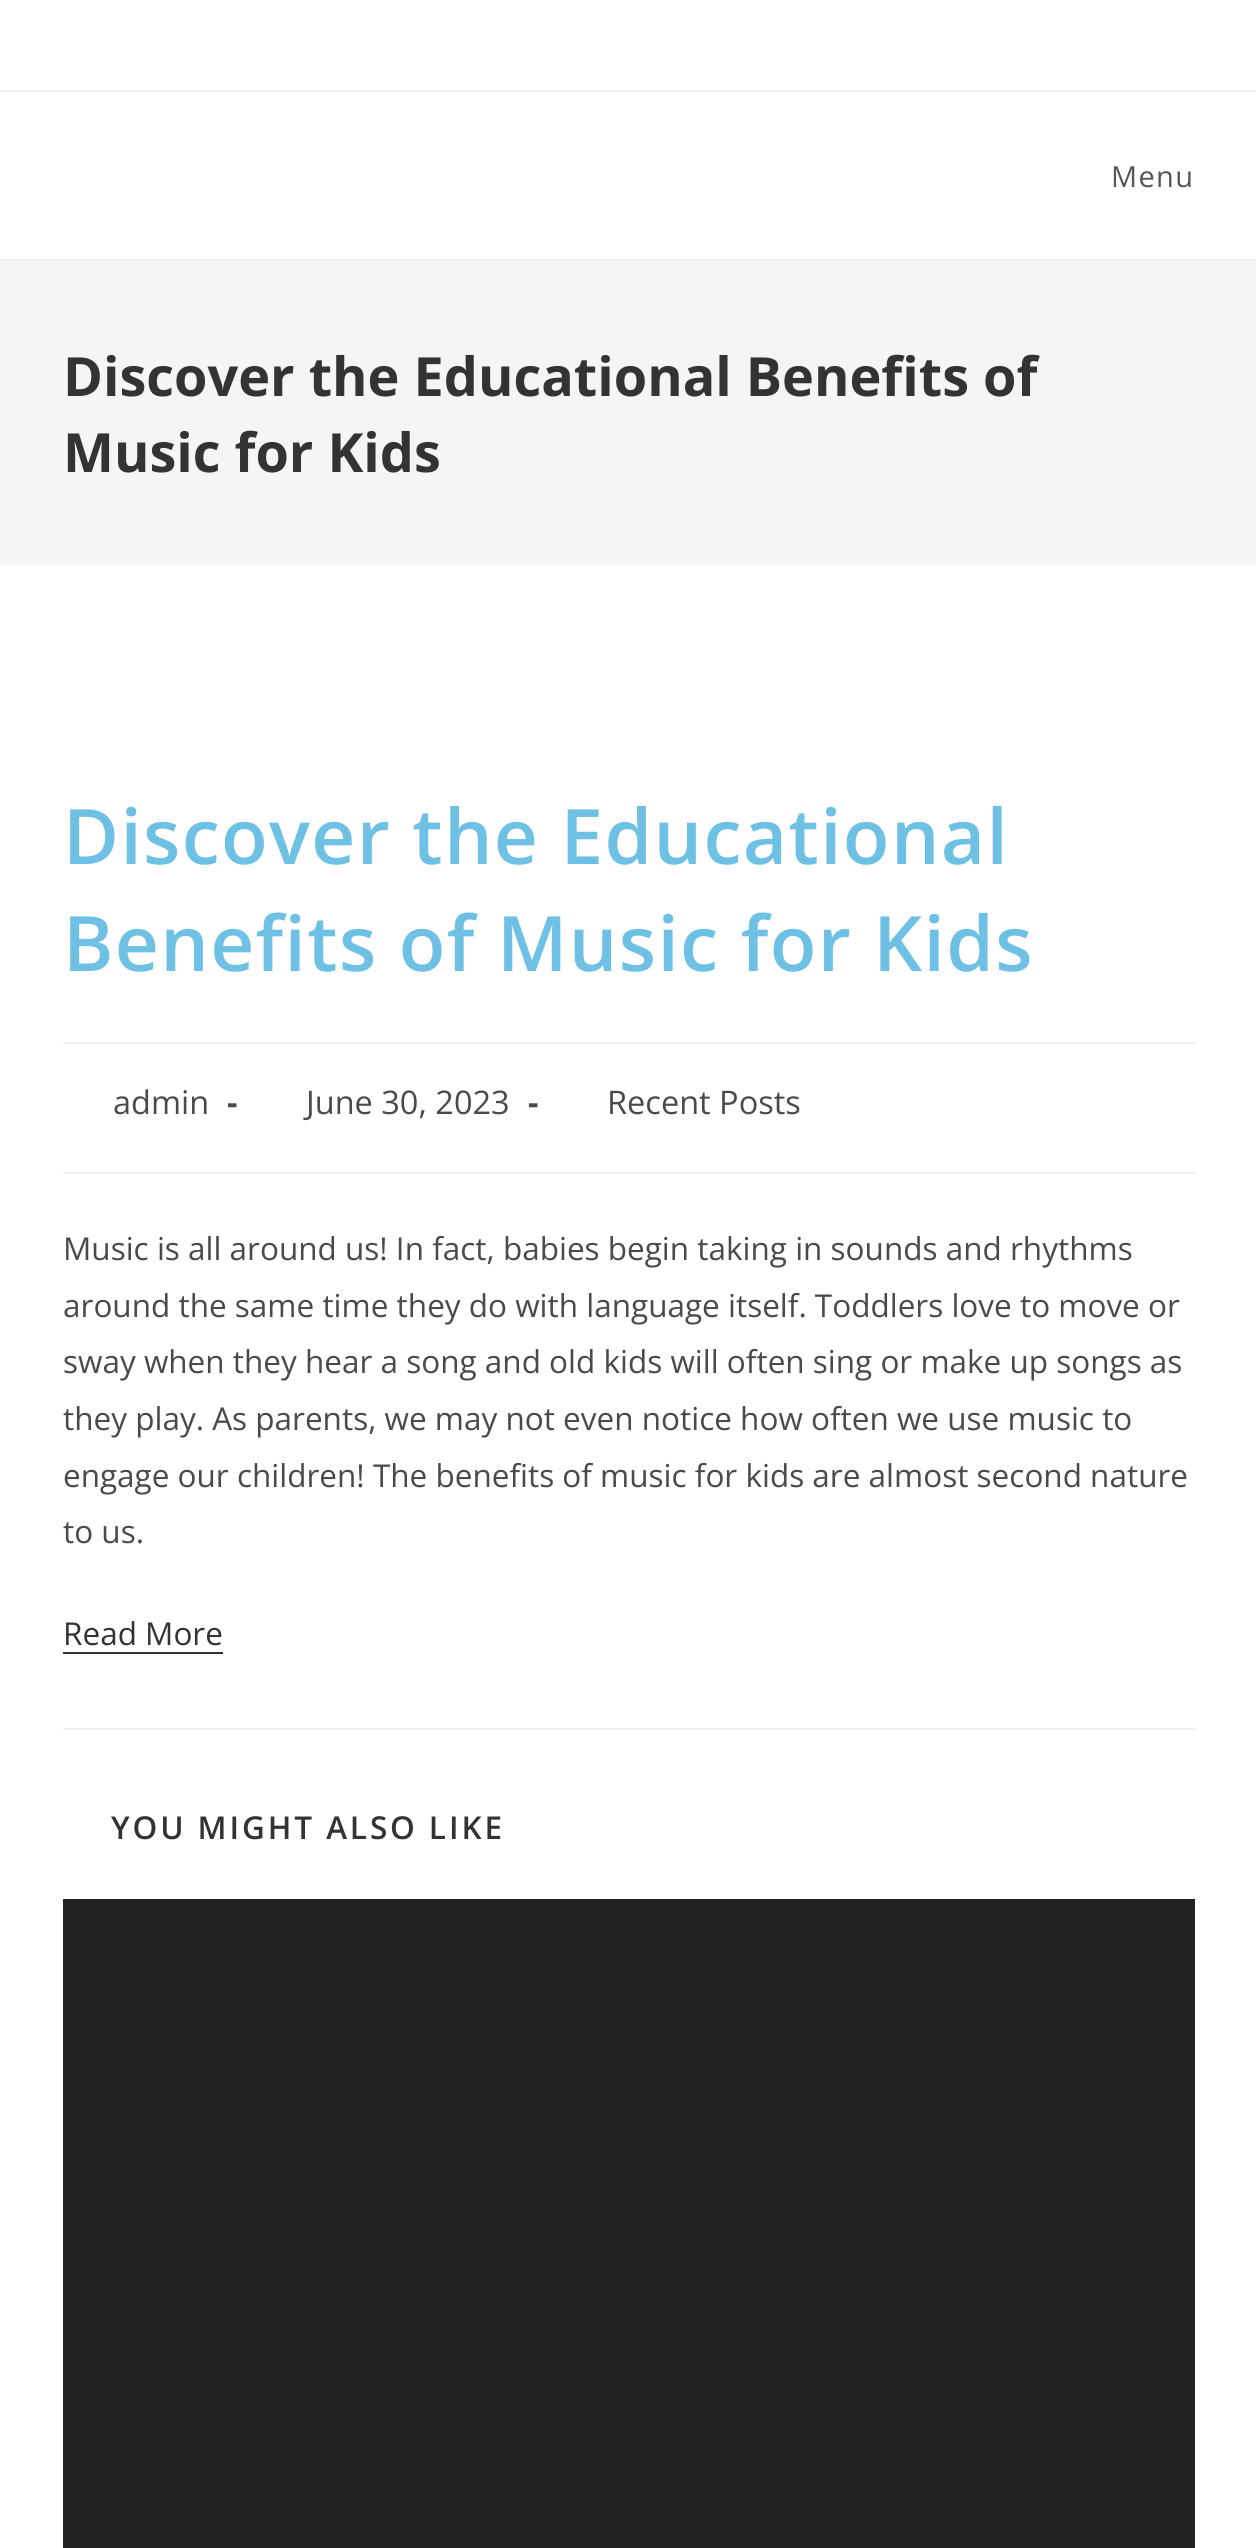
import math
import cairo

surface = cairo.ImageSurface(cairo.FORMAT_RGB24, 1256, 2548)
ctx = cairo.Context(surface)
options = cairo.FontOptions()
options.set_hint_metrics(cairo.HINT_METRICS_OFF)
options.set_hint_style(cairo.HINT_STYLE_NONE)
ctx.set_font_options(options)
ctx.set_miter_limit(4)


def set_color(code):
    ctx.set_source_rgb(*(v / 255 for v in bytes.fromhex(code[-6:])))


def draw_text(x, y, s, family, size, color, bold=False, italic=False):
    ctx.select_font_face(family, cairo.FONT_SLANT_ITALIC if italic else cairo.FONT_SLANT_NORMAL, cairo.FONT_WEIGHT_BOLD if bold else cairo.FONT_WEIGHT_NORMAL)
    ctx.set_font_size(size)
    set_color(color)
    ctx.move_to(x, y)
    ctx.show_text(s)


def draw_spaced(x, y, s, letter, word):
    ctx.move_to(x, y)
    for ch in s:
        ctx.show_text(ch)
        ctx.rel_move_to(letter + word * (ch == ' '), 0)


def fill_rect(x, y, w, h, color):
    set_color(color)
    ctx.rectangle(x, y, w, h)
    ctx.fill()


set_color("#ffffff")
ctx.paint()
fill_rect(0, 90, 1256, 2, "#f1f1f1")
fill_rect(0, 259, 1256, 2, "#f1f1f1")
ctx.select_font_face("Open Sans")
ctx.set_font_size(29)
set_color("#555555")
draw_spaced(1111, 187, "Menu", 1.35, 0)
fill_rect(0, 261, 1256, 304, "#f5f5f5")
draw_text(63, 396, "Discover the Educational Benefits of", "Open Sans", 54, "#333333", bold=True)
draw_text(63, 472, "Music for Kids", "Open Sans", 54, "#333333", bold=True)
fill_rect(63, 1042, 1132, 2, "#f1f1f1")
ctx.select_font_face("Open Sans SemiBold")
ctx.set_font_size(76.5)
set_color("#6ec1e4")
draw_spaced(63, 864, "Discover the Educational", 1.35, 0)
draw_spaced(63, 971, "Benefits of Music for Kids", 1.35, 0)
fill_rect(63, 1172, 1132, 2, "#f1f1f1")
draw_text(113, 1114, "admin", "Open Sans", 32.5, "#4a4a4a")
draw_text(227, 1114, "-", "Open Sans", 32.5, "#4a4a4a", bold=True)
draw_text(306, 1114, "June 30, 2023", "Open Sans", 32.5, "#4a4a4a")
draw_text(528, 1114, "-", "Open Sans", 32.5, "#4a4a4a", bold=True)
draw_text(607, 1114, "Recent Posts", "Open Sans", 32.5, "#4a4a4a")
draw_text(63, 1260, "Music is all around us! In fact, babies begin taking in sounds and rhythms", "Open Sans", 31.5, "#4a4a4a")
draw_text(63, 1317, "around the same time they do with language itself. Toddlers love to move or", "Open Sans", 31.5, "#4a4a4a")
draw_text(63, 1373, "sway when they hear a song and old kids will often sing or make up songs as", "Open Sans", 31.5, "#4a4a4a")
draw_text(63, 1430, "they play. As parents, we may not even notice how often we use music to", "Open Sans", 31.5, "#4a4a4a")
draw_text(63, 1487, "engage our children! The benefits of music for kids are almost second nature", "Open Sans", 31.5, "#4a4a4a")
draw_text(63, 1543, "to us.", "Open Sans", 31.5, "#4a4a4a")
draw_text(63, 1645, "Read More", "Open Sans", 31.5, "#333333")
fill_rect(63, 1652, 160, 2, "#333333")
fill_rect(63, 1728, 1132, 2, "#f1f1f1")
ctx.select_font_face("Open Sans SemiBold")
set_color("#333333")
draw_spaced(111, 1839, "YOU MIGHT ALSO LIKE", 2.9, 0)
fill_rect(63, 1899, 1132, 649, "#222222")
surface.write_to_png("output.png")
